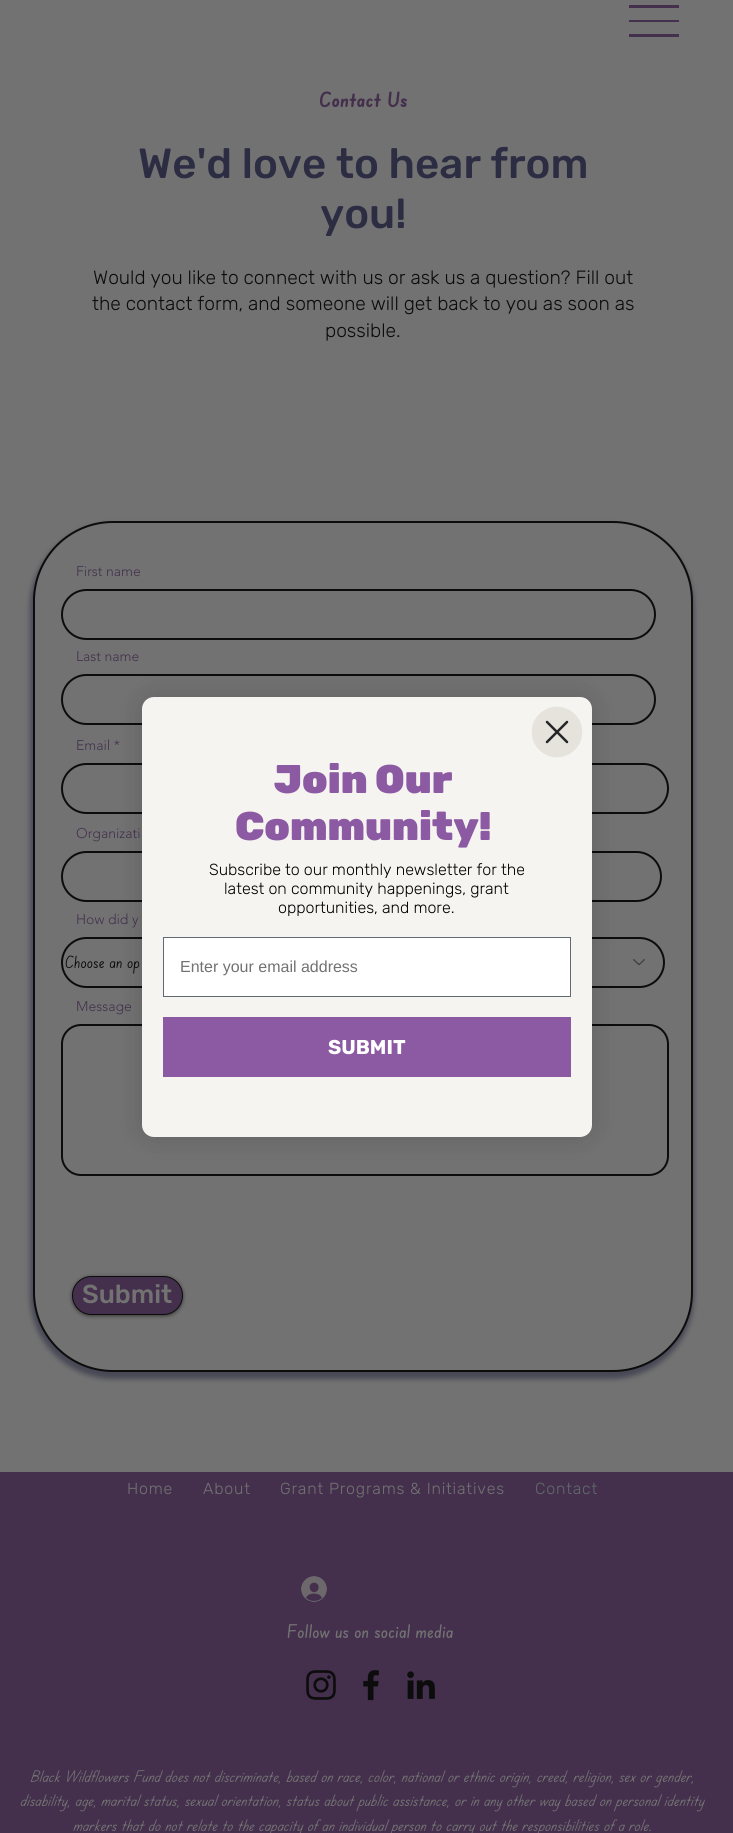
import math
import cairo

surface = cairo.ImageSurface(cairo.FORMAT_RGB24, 733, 1833)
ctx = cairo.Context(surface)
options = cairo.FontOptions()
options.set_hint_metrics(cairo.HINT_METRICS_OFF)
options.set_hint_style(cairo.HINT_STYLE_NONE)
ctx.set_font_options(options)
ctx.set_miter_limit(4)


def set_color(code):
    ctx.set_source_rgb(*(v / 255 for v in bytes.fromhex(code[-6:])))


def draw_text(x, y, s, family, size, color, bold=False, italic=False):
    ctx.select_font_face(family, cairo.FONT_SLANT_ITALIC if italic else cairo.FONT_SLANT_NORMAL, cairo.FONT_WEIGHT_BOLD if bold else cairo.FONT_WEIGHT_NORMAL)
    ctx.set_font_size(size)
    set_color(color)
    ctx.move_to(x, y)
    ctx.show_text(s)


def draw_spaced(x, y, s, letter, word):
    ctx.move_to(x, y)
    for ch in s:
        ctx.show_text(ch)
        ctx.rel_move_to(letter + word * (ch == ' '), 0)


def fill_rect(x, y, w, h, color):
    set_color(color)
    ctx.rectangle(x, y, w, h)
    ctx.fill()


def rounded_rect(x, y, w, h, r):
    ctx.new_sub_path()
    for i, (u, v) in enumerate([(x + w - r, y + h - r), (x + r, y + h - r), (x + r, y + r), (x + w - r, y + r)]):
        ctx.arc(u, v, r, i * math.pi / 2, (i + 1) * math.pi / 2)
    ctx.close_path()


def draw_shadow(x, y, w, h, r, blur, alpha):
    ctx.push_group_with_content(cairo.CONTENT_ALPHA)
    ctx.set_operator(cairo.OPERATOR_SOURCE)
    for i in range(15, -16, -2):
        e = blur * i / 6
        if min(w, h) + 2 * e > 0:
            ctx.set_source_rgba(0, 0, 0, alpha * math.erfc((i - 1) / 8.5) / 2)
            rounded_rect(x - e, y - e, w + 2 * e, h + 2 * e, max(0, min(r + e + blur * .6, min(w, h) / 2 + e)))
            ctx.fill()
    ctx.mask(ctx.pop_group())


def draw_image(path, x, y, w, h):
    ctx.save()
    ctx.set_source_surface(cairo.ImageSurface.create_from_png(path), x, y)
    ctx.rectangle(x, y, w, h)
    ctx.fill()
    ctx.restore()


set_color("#727272")
ctx.paint()
fill_rect(629, 5, 50, 3, "#44304d")
fill_rect(629, 20, 50, 2, "#44304d")
fill_rect(629, 34, 50, 3, "#44304d")
draw_text(319, 107, "Contact Us", "Edu SA Beginner", 20, "#44304d", bold=True)
draw_text(138, 178, "We'd love to hear from", "Rubik Medium", 42.1, "#2c2d43")
draw_text(320, 228, "you!", "Rubik Medium", 42.1, "#2c2d43")
draw_text(93, 284, "Would you like to connect with us or ask us a question? Fill out", "Rubik Light", 19.2, "#0c0c0c")
draw_text(92, 310, "the contact form, and someone will get back to you as soon as", "Rubik Light", 19.2, "#0c0c0c")
draw_text(325, 337, "possible.", "Rubik Light", 19.2, "#0c0c0c")
set_color("#2c2d43")
draw_shadow(30, 524, 664, 855, 82, 2.5, 0.6)
set_color("#727272")
rounded_rect(34, 522, 658, 849, 79)
ctx.fill_preserve()
set_color("#0c0c0c")
ctx.stroke()
draw_text(76, 576, "First name", "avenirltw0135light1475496 Light", 14, "#44304d")
rounded_rect(62, 590, 593, 49, 24.5)
set_color("#0c0c0c")
ctx.stroke()
draw_text(76, 661, "Last name", "avenirltw0135light1475496 Light", 14, "#44304d")
rounded_rect(62, 675, 593, 49, 24.5)
set_color("#0c0c0c")
ctx.stroke()
draw_text(76, 750, "Email *", "avenirltw0135light1475496 Light", 14, "#44304d")
rounded_rect(62, 764, 606, 49, 24.5)
set_color("#0c0c0c")
ctx.stroke()
draw_text(76, 838, "Organizati", "avenirltw0135light1475496 Light", 14, "#44304d")
rounded_rect(62, 852, 599, 49, 24.5)
set_color("#0c0c0c")
ctx.stroke()
draw_text(76, 924, "How did y", "avenirltw0135light1475496 Light", 14, "#44304d")
rounded_rect(62, 938, 602, 49, 24.5)
set_color("#0c0c0c")
ctx.stroke()
draw_text(65, 968, "Choose an op", "Edu SA Beginner", 16, "#0c0c0c")
draw_image("assets/img1.png", 633, 959, 12, 7)
draw_text(76, 1011, "Message", "avenirltw0135light1475496 Light", 14, "#44304d")
rounded_rect(62, 1025, 606, 150, 19)
set_color("#0c0c0c")
ctx.stroke()
set_color("#0c0c0c")
draw_shadow(72, 1277, 111, 39, 19.5, 2, 0.6)
set_color("#44304d")
rounded_rect(72.5, 1276.5, 110, 38, 19)
ctx.fill_preserve()
set_color("#0c0c0c")
ctx.set_line_width(1)
ctx.stroke()
draw_text(82, 1303, "Submit", "Rubik Medium", 26, "#727272")
fill_rect(0, 1472, 733, 361, "#44304d")
ctx.select_font_face("Rubik Light")
ctx.set_font_size(16)
set_color("#727272")
draw_spaced(127, 1494, "Home", 0.8, 0)
draw_spaced(203, 1494, "About", 0.8, 0)
draw_spaced(280, 1494, "Grant Programs & Initiatives", 0.8, 0)
set_color("#61696b")
draw_spaced(535, 1494, "Contact", 0.8, 0)
draw_image("assets/img2.png", 301, 1576, 26, 26)
draw_text(287, 1638, "Follow us on social media", "Edu SA Beginner Medium", 18, "#727272")
draw_image("assets/img3.png", 306, 1670, 30, 30)
draw_image("assets/img4.png", 363, 1670, 16, 31)
draw_image("assets/img5.png", 407, 1671, 28, 28)
draw_text(30, 1782, "Black Wildflowers Fund does not discriminate, based on race, color, national or ethnic origin, creed, religion, sex or gender,", "Edu SA Beginner", 15.2, "#727272", italic=True)
draw_text(20, 1806, "disability, age, marital status, sexual orientation, status about public assistance, or in any other way based on personal identity", "Edu SA Beginner", 15.2, "#727272", italic=True)
draw_text(73, 1831, "markers that do not relate to the capacity of an individual person to carry out the responsibilities of a role.", "Edu SA Beginner", 15.2, "#727272", italic=True)
set_color("#000000")
draw_shadow(142, 697, 450, 440, 12, 15, 0.15)
set_color("#f5f4f0")
rounded_rect(142, 697, 450, 440, 12)
ctx.fill()
set_color("#e6e3dc")
ctx.arc(557, 732, 24, 0, 2 * math.pi)
ctx.fill_preserve()
ctx.set_line_width(2.5)
ctx.stroke()
ctx.new_path()
ctx.move_to(547, 722)
ctx.line_to(567, 742)
ctx.move_to(547, 742)
ctx.line_to(567, 722)
ctx.close_path()
set_color("#242527")
ctx.set_line_cap(cairo.LINE_CAP_ROUND)
ctx.set_line_join(cairo.LINE_JOIN_ROUND)
ctx.stroke()
draw_text(274, 793, "Join Our", "Rubik Black", 40, "#8c59a3")
draw_text(235, 840, "Community!", "Rubik Black", 40, "#8c59a3")
draw_text(209, 875, "Subscribe to our monthly newsletter for the", "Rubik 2 Light", 16, "#000000")
draw_text(224, 894, "latest on community happenings, grant", "Rubik 2 Light", 16, "#000000")
draw_text(278, 913, "opportunities, and more.", "Rubik 2 Light", 16, "#000000")
set_color("#ffffff")
ctx.rectangle(163.5, 937.5, 407, 59)
ctx.fill_preserve()
set_color("#606a72")
ctx.set_line_width(1)
ctx.set_line_cap(cairo.LINE_CAP_BUTT)
ctx.set_line_join(cairo.LINE_JOIN_MITER)
ctx.stroke()
draw_text(180, 972, "Enter your email address", "Liberation Sans", 16, "#727272")
fill_rect(163, 1017, 408, 60, "#8c59a3")
draw_text(328, 1054, "SUBMIT", "Rubik", 20, "#ffffff", bold=True)
surface.write_to_png("output.png")
